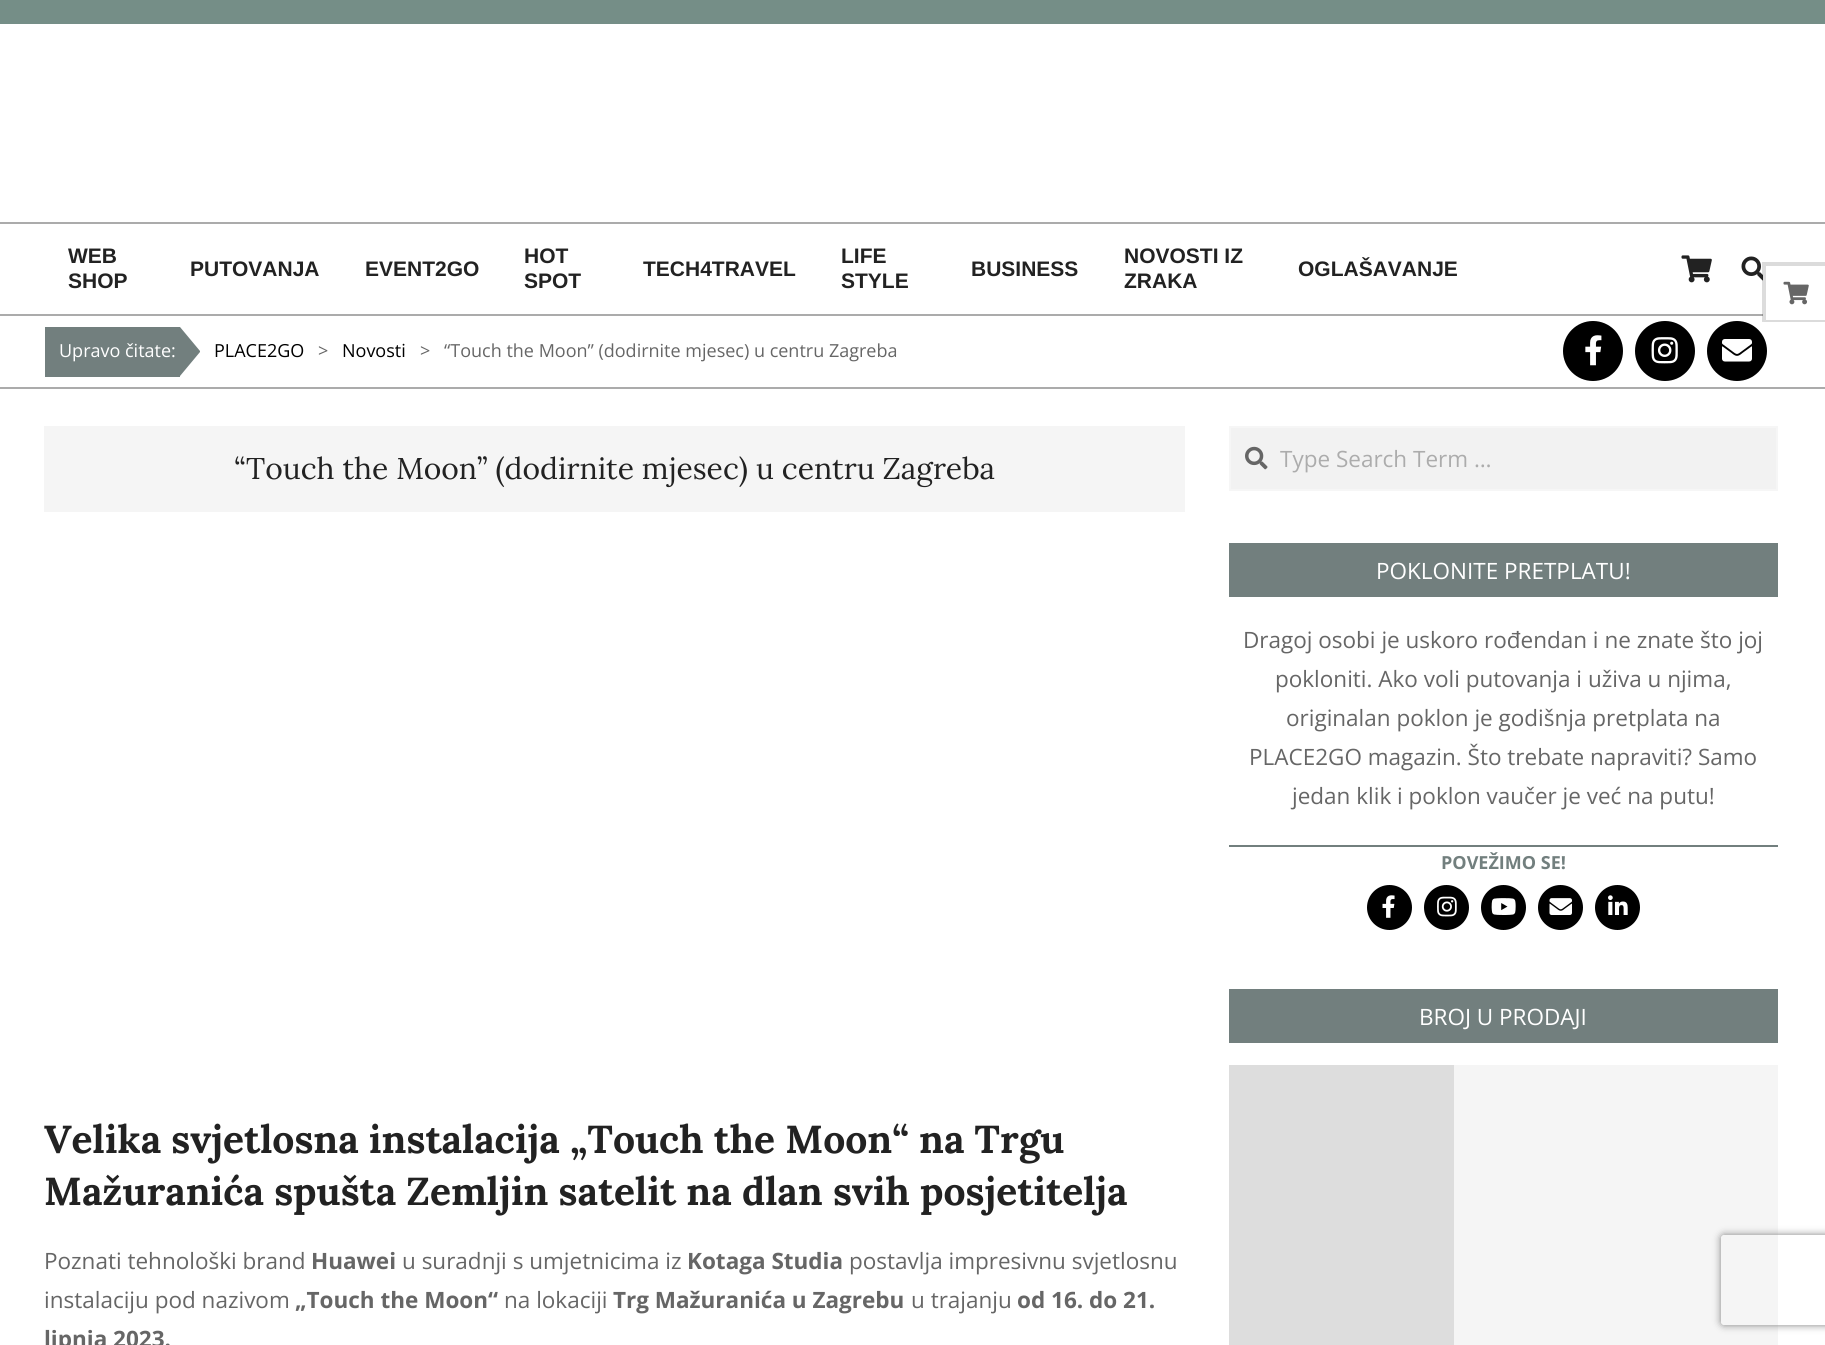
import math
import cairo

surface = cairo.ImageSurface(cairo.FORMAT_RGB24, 1825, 1345)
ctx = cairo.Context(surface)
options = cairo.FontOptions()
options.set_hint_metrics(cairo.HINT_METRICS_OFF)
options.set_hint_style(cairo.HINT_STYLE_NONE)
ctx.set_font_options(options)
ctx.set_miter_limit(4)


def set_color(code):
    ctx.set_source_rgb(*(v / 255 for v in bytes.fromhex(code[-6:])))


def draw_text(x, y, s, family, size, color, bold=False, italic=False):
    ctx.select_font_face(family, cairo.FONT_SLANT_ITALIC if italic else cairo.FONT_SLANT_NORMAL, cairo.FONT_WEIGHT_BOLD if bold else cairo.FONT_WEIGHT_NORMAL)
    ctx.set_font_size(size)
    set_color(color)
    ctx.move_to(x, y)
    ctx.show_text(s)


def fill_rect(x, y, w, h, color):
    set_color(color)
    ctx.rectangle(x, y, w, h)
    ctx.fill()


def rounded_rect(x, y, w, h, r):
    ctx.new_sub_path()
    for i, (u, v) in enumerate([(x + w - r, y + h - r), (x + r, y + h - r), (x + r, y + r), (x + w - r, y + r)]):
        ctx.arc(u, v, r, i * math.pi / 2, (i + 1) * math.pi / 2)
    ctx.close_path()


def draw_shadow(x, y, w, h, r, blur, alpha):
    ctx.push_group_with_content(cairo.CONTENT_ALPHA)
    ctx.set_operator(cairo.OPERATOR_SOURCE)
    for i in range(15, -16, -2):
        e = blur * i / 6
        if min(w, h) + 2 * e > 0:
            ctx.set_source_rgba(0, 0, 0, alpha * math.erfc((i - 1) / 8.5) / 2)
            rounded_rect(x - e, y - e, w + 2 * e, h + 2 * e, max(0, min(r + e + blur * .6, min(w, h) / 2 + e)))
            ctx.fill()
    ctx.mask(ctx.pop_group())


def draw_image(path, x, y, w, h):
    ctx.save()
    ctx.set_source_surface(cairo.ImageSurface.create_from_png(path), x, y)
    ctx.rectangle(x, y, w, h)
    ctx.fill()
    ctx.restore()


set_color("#ffffff")
ctx.paint()
fill_rect(0, 0, 1825, 24, "#758e87")
fill_rect(0, 222, 1825, 2, "#ababab")
fill_rect(0, 314, 1763, 2, "#ababab")
draw_text(68, 263, "WEB", "Liberation Sans", 21, "#222222", bold=True)
draw_text(68, 288, "SHOP", "Liberation Sans", 21, "#222222", bold=True)
draw_text(190, 276, "PUTOVANJA", "Liberation Sans", 21, "#222222", bold=True)
draw_text(365, 276, "EVENT2GO", "Liberation Sans", 21, "#222222", bold=True)
draw_text(524, 263, "HOT", "Liberation Sans", 21, "#222222", bold=True)
draw_text(524, 288, "SPOT", "Liberation Sans", 21, "#222222", bold=True)
draw_text(643, 276, "TECH4TRAVEL", "Liberation Sans", 21, "#222222", bold=True)
draw_text(841, 263, "LIFE", "Liberation Sans", 21, "#222222", bold=True)
draw_text(841, 288, "STYLE", "Liberation Sans", 21, "#222222", bold=True)
draw_text(971, 276, "BUSINESS", "Liberation Sans", 21, "#222222", bold=True)
draw_text(1124, 263, "NOVOSTI IZ", "Liberation Sans", 21, "#222222", bold=True)
draw_text(1124, 288, "ZRAKA", "Liberation Sans", 21, "#222222", bold=True)
draw_text(1298, 276, "OGLAŠAVANJE", "Liberation Sans", 21, "#222222", bold=True)
draw_image("assets/img1.png", 1681, 255, 31, 28)
draw_image("assets/img2.png", 1741, 256, 22, 25)
fill_rect(0, 387, 1825, 2, "#ababab")
fill_rect(45, 327, 135, 50, "#727f7e")
draw_text(59, 357, "Upravo čitate:", "Open Sans", 18, "#ffffff")
set_color("#727f7e")
ctx.new_path()
ctx.move_to(180, 376)
ctx.line_to(180, 327)
ctx.line_to(200, 351)
ctx.line_to(200, 352)
ctx.close_path()
ctx.fill()
draw_text(214, 357, "PLACE2GO", "Open Sans", 18, "#000000")
draw_text(318, 357, ">", "Open Sans", 18, "#666666")
draw_text(342, 357, "Novosti", "Open Sans", 18, "#000000")
draw_text(420, 357, ">", "Open Sans", 18, "#666666")
draw_text(444, 357, "“Touch the Moon” (dodirnite mjesec) u centru Zagreba", "Open Sans", 18, "#666666")
set_color("#000000")
ctx.new_path()
ctx.arc(1593, 351, 30, 0, 2 * math.pi)
ctx.fill()
draw_image("assets/img3.png", 1585, 335, 17, 31)
ctx.arc(1665, 351, 30, 0, 2 * math.pi)
ctx.fill()
draw_image("assets/img4.png", 1651, 337, 27, 27)
ctx.arc(1737, 351, 30, 0, 2 * math.pi)
ctx.fill()
draw_image("assets/img5.png", 1722, 339, 30, 23)
fill_rect(44, 426, 1141, 86, "#f5f5f5")
draw_text(234, 479, "“Touch the Moon” (dodirnite mjesec) u centru Zagreba", "Lora", 30, "#222222")
draw_text(44, 1153, "Velika svjetlosna instalacija „Touch the Moon“ na Trgu", "Lora", 39, "#222222", bold=True)
draw_text(44, 1205, "Mažuranića spušta Zemljin satelit na dlan svih posjetitelja", "Lora", 39, "#222222", bold=True)
draw_text(44, 1269, "Poznati tehnološki brand", "Open Sans", 22.5, "#666666")
draw_text(311, 1269, "Huawei", "Open Sans", 22.5, "#666666", bold=True)
draw_text(402, 1269, "u suradnji s umjetnicima iz", "Open Sans", 22.5, "#666666")
draw_text(687, 1269, "Kotaga Studia", "Open Sans", 22.5, "#666666", bold=True)
draw_text(849, 1269, "postavlja impresivnu svjetlosnu", "Open Sans", 22.5, "#666666")
draw_text(44, 1308, "instalaciju pod nazivom", "Open Sans", 22.5, "#666666")
draw_text(295, 1308, "„Touch the Moon“", "Open Sans", 22.5, "#666666", bold=True)
draw_text(504, 1308, "na lokaciji", "Open Sans", 22.5, "#666666")
draw_text(613, 1308, "Trg Mažuranića u Zagrebu", "Open Sans", 22.5, "#666666", bold=True)
draw_text(911, 1308, "u trajanju", "Open Sans", 22.5, "#666666")
draw_text(1017, 1308, "od 16. do 21.", "Open Sans", 22.5, "#666666", bold=True)
draw_text(44, 1347, "lipnja 2023.", "Open Sans", 22.5, "#666666", bold=True)
set_color("#f2f2f2")
ctx.rectangle(1230, 427, 547, 63)
ctx.fill_preserve()
set_color("#f6f6f6")
ctx.stroke()
draw_image("assets/img6.png", 1245, 446, 23, 24)
draw_text(1280, 467, "Type Search Term …", "Open Sans", 22.5, "#acacac")
fill_rect(1229, 543, 549, 54, "#727f7e")
draw_text(1376, 579, "POKLONITE PRETPLATU!", "Open Sans", 22.5, "#ffffff")
draw_text(1243, 648, "Dragoj osobi je uskoro rođendan i ne znate što joj", "Open Sans", 22.5, "#666666")
draw_text(1275, 687, "pokloniti. Ako voli putovanja i uživa u njima,", "Open Sans", 22.5, "#666666")
draw_text(1286, 726, "originalan poklon je godišnja pretplata na", "Open Sans", 22.5, "#666666")
draw_text(1249, 765, "PLACE2GO magazin. Što trebate napraviti? Samo", "Open Sans", 22.5, "#666666")
draw_text(1292, 804, "jedan klik i poklon vaučer je već na putu!", "Open Sans", 22.5, "#666666")
fill_rect(1229, 845, 549, 2, "#727f7e")
draw_text(1441, 869, "POVEŽIMO SE!", "Open Sans", 18, "#727f7e", bold=True)
set_color("#000000")
ctx.new_path()
ctx.arc(1389.5, 907.5, 22.5, 0, 2 * math.pi)
ctx.fill()
draw_image("assets/img7.png", 1382, 895, 13, 23)
ctx.arc(1446.5, 907.5, 22.5, 0, 2 * math.pi)
ctx.fill()
draw_image("assets/img8.png", 1437, 896, 20, 21)
ctx.arc(1503.5, 907.5, 22.5, 0, 2 * math.pi)
ctx.fill()
draw_image("assets/img9.png", 1491, 898, 25, 17)
ctx.arc(1560.5, 907.5, 22.5, 0, 2 * math.pi)
ctx.fill()
draw_image("assets/img10.png", 1549, 898, 23, 17)
ctx.arc(1617.5, 907.5, 22.5, 0, 2 * math.pi)
ctx.fill()
draw_image("assets/img11.png", 1608, 895, 20, 20)
fill_rect(1229, 989, 549, 54, "#727f7e")
draw_text(1419, 1025, "BROJ U PRODAJI", "Open Sans", 22.5, "#ffffff")
fill_rect(1454, 1065, 324, 280, "#f5f5f5")
fill_rect(1229, 1065, 225, 280, "#dddddd")
set_color("#dbdbdb")
ctx.new_path()
ctx.move_to(1762, 262)
ctx.line_to(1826, 262)
ctx.line_to(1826, 266)
ctx.line_to(1766, 266)
ctx.close_path()
ctx.move_to(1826, 322)
ctx.line_to(1762, 322)
ctx.line_to(1766, 320)
ctx.line_to(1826, 320)
ctx.close_path()
ctx.fill()
ctx.set_source_rgba(0, 0, 0, 0.14)
ctx.new_path()
ctx.move_to(1762, 322)
ctx.line_to(1762, 262)
ctx.line_to(1766, 266)
ctx.line_to(1766, 320)
ctx.close_path()
ctx.fill()
draw_image("assets/img12.png", 1783, 281, 26, 24)
ctx.save()
ctx.set_fill_rule(cairo.FILL_RULE_EVEN_ODD)
ctx.new_path()
ctx.move_to(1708, 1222)
ctx.line_to(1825, 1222)
ctx.line_to(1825, 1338)
ctx.line_to(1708, 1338)
ctx.close_path()
ctx.move_to(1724, 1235)
ctx.line_to(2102, 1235)
ctx.curve_to(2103.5, 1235, 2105, 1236.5, 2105, 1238)
ctx.line_to(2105, 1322)
ctx.curve_to(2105, 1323.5, 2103.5, 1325, 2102, 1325)
ctx.line_to(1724, 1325)
ctx.curve_to(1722.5, 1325, 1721, 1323.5, 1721, 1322)
ctx.line_to(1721, 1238)
ctx.curve_to(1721, 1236.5, 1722.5, 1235, 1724, 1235)
ctx.close_path()
ctx.clip()
set_color("#808080")
draw_shadow(1721, 1235, 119, 90, 3, 4, 1)
ctx.restore()
surface.write_to_png("output.png")
